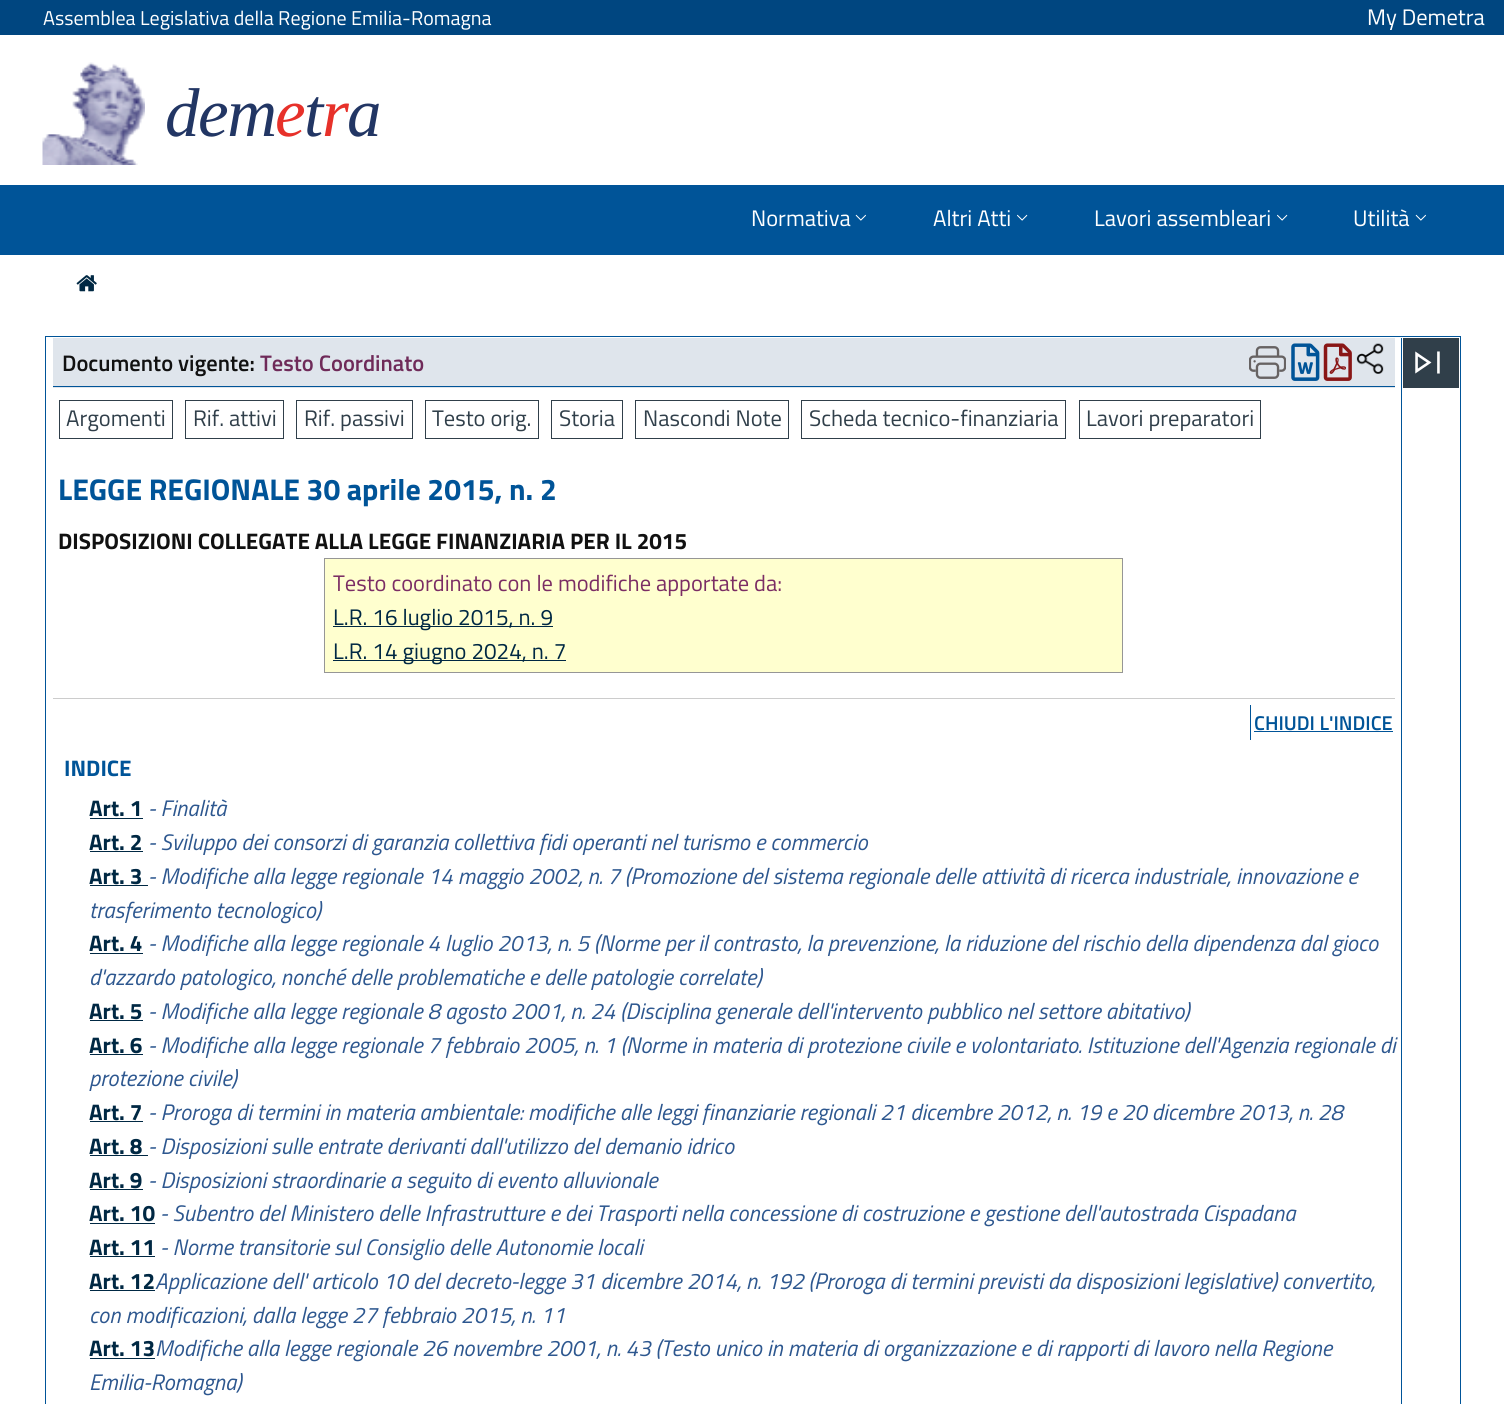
import math
import cairo

surface = cairo.ImageSurface(cairo.FORMAT_RGB24, 1504, 1404)
ctx = cairo.Context(surface)
options = cairo.FontOptions()
options.set_hint_metrics(cairo.HINT_METRICS_OFF)
options.set_hint_style(cairo.HINT_STYLE_NONE)
ctx.set_font_options(options)
ctx.set_miter_limit(4)


def set_color(code):
    ctx.set_source_rgb(*(v / 255 for v in bytes.fromhex(code[-6:])))


def draw_text(x, y, s, family, size, color, bold=False, italic=False):
    ctx.select_font_face(family, cairo.FONT_SLANT_ITALIC if italic else cairo.FONT_SLANT_NORMAL, cairo.FONT_WEIGHT_BOLD if bold else cairo.FONT_WEIGHT_NORMAL)
    ctx.set_font_size(size)
    set_color(color)
    ctx.move_to(x, y)
    ctx.show_text(s)


def draw_spaced(x, y, s, letter, word):
    ctx.move_to(x, y)
    for ch in s:
        ctx.show_text(ch)
        ctx.rel_move_to(letter + word * (ch == ' '), 0)


def fill_rect(x, y, w, h, color):
    set_color(color)
    ctx.rectangle(x, y, w, h)
    ctx.fill()


def draw_image(path, x, y, w, h):
    ctx.save()
    ctx.set_source_surface(cairo.ImageSurface.create_from_png(path), x, y)
    ctx.rectangle(x, y, w, h)
    ctx.fill()
    ctx.restore()


set_color("#004680")
ctx.paint()
draw_text(43, 25, "Assemblea Legislativa della Regione Emilia-Romagna", "Titillium Web", 20, "#ffffff")
draw_text(1367, 25, "My Demetra", "Titillium Web", 22.5, "#ffffff")
fill_rect(0, 35, 1504, 150, "#ffffff")
draw_image("assets/img1.png", 42, 62, 103, 103)
ctx.select_font_face("Liberation Serif", cairo.FONT_SLANT_ITALIC)
ctx.set_font_size(69)
set_color("#223664")
draw_spaced(165, 136, "dem", -1.5, 0)
set_color("#e7312a")
draw_spaced(275, 136, "e", -1.5, 0)
set_color("#223664")
draw_spaced(304, 136, "t", -1.5, 0)
set_color("#e7312a")
draw_spaced(322, 136, "r", -1.5, 0)
set_color("#223664")
draw_spaced(347, 136, "a", -1.5, 0)
fill_rect(0, 185, 1504, 70, "#005498")
draw_text(751, 226, "Normativa", "Titillium Web", 22.5, "#ffffff")
draw_image("assets/img2.png", 855, 214, 11, 7)
draw_text(933, 226, "Altri Atti", "Titillium Web", 22.5, "#ffffff")
draw_image("assets/img3.png", 1017, 214, 11, 7)
draw_text(1094, 226, "Lavori assembleari", "Titillium Web", 22.5, "#ffffff")
draw_image("assets/img3.png", 1277, 214, 11, 7)
draw_text(1353, 226, "Utilità", "Titillium Web", 22.5, "#ffffff")
draw_image("assets/img2.png", 1415, 214, 11, 7)
fill_rect(0, 255, 1504, 1149, "#ffffff")
draw_image("assets/img4.png", 76, 275, 21, 17)
ctx.rectangle(45.5, 336.5, 1415, 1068)
set_color("#005498")
ctx.set_line_width(1)
ctx.stroke()
fill_rect(1401, 338, 1, 1066, "#005498")
fill_rect(53, 338, 1342, 50, "#dfe5ec")
fill_rect(53, 386, 1342, 1, "#005498")
draw_text(62, 371, "Documento vigente:", "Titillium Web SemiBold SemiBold", 22.5, "#111111")
draw_text(260, 371, "Testo Coordinato", "Titillium Web SemiBold SemiBold", 22.5, "#6f2a59")
draw_image("assets/img5.png", 1249, 346, 37, 33)
draw_image("assets/img6.png", 1291, 343, 29, 38)
draw_image("assets/img7.png", 1323, 343, 29, 38)
draw_image("assets/img8.png", 1356, 343, 28, 31)
ctx.rectangle(59.5, 400.5, 113, 38)
set_color("#303f4a")
ctx.stroke()
draw_text(66, 426, "Argomenti", "Titillium Web", 22.5, "#303f4a")
ctx.rectangle(185.5, 400.5, 98, 38)
ctx.stroke()
draw_text(193, 426, "Rif. attivi", "Titillium Web", 22.5, "#303f4a")
ctx.rectangle(296.5, 400.5, 116, 38)
ctx.stroke()
draw_text(304, 426, "Rif. passivi", "Titillium Web", 22.5, "#303f4a")
ctx.rectangle(425.5, 400.5, 113, 38)
ctx.stroke()
draw_text(432, 426, "Testo orig.", "Titillium Web", 22.5, "#303f4a")
ctx.rectangle(551.5, 400.5, 71, 38)
ctx.stroke()
draw_text(559, 426, "Storia", "Titillium Web", 22.5, "#303f4a")
ctx.rectangle(635.5, 400.5, 153, 38)
ctx.stroke()
draw_text(643, 426, "Nascondi Note", "Titillium Web", 22.5, "#303f4a")
ctx.rectangle(801.5, 400.5, 264, 38)
ctx.stroke()
draw_text(809, 426, "Scheda tecnico-finanziaria", "Titillium Web", 22.5, "#303f4a")
ctx.rectangle(1079.5, 400.5, 181, 38)
ctx.stroke()
draw_text(1086, 426, "Lavori preparatori", "Titillium Web", 22.5, "#303f4a")
draw_text(58, 500, "LEGGE REGIONALE 30 aprile 2015, n. 2", "Titillium Web", 30, "#005498", bold=True)
draw_text(58, 549, "DISPOSIZIONI COLLEGATE ALLA LEGGE FINANZIARIA PER IL 2015", "Titillium Web", 22.5, "#111111", bold=True)
set_color("#ffffcf")
ctx.rectangle(324.5, 558.5, 798, 114)
ctx.fill_preserve()
set_color("#969696")
ctx.stroke()
draw_text(333, 591, "Testo coordinato con le modifiche apportate da:", "Titillium Web", 22.5, "#7b2d64")
fill_rect(333, 626, 220, 1, "#002843")
draw_text(333, 625, "L.R. 16 luglio 2015, n. 9", "Titillium Web", 22.5, "#002843")
fill_rect(333, 660, 233, 1, "#002843")
draw_text(333, 659, "L.R. 14 giugno 2024, n. 7", "Titillium Web", 22.5, "#002843")
fill_rect(53, 698, 1342, 1, "#cccccc")
fill_rect(1250, 705, 1, 35, "#005498")
draw_text(1254, 730, "CHIUDI L'INDICE", "Titillium Web SemiBold SemiBold", 20, "#005498")
fill_rect(1254, 731, 139, 1, "#005498")
draw_text(64, 776, "INDICE", "Titillium Web", 22.5, "#005498", bold=True)
draw_text(89, 816, "Art. 1", "Titillium Web", 22.5, "#002843", bold=True)
fill_rect(90, 818, 53, 1, "#002843")
draw_text(148, 816, "- Finalità", "Titillium Web", 22.5, "#2d578f", italic=True)
draw_text(89, 850, "Art. 2", "Titillium Web", 22.5, "#002843", bold=True)
fill_rect(90, 851, 53, 1, "#002843")
draw_text(148, 850, "- Sviluppo dei consorzi di garanzia collettiva fidi operanti nel turismo e commercio", "Titillium Web", 22.5, "#2d578f", italic=True)
draw_text(89, 884, "Art. 3", "Titillium Web", 22.5, "#002843", bold=True)
fill_rect(90, 885, 58, 1, "#002843")
draw_text(148, 884, "- Modifiche alla legge regionale 14 maggio 2002, n. 7 (Promozione del sistema regionale delle attività di ricerca industriale, innovazione e", "Titillium Web", 22.5, "#2d578f", italic=True)
draw_text(89, 918, "trasferimento tecnologico)", "Titillium Web", 22.5, "#2d578f", italic=True)
draw_text(89, 951, "Art. 4", "Titillium Web", 22.5, "#002843", bold=True)
fill_rect(90, 953, 53, 1, "#002843")
draw_text(148, 951, "- Modifiche alla legge regionale 4 luglio 2013, n. 5 (Norme per il contrasto, la prevenzione, la riduzione del rischio della dipendenza dal gioco", "Titillium Web", 22.5, "#2d578f", italic=True)
draw_text(89, 985, "d'azzardo patologico, nonché delle problematiche e delle patologie correlate)", "Titillium Web", 22.5, "#2d578f", italic=True)
draw_text(89, 1019, "Art. 5", "Titillium Web", 22.5, "#002843", bold=True)
fill_rect(90, 1020, 53, 1, "#002843")
draw_text(148, 1019, "- Modifiche alla legge regionale 8 agosto 2001, n. 24 (Disciplina generale dell'intervento pubblico nel settore abitativo)", "Titillium Web", 22.5, "#2d578f", italic=True)
draw_text(89, 1053, "Art. 6", "Titillium Web", 22.5, "#002843", bold=True)
fill_rect(90, 1054, 53, 1, "#002843")
draw_text(148, 1053, "- Modifiche alla legge regionale 7 febbraio 2005, n. 1 (Norme in materia di protezione civile e volontariato. Istituzione dell'Agenzia regionale di", "Titillium Web", 22.5, "#2d578f", italic=True)
draw_text(89, 1086, "protezione civile)", "Titillium Web", 22.5, "#2d578f", italic=True)
draw_text(89, 1120, "Art. 7", "Titillium Web", 22.5, "#002843", bold=True)
fill_rect(90, 1121, 53, 1, "#002843")
draw_text(148, 1120, "- Proroga di termini in materia ambientale: modifiche alle leggi finanziarie regionali 21 dicembre 2012, n. 19 e 20 dicembre 2013, n. 28", "Titillium Web", 22.5, "#2d578f", italic=True)
draw_text(89, 1154, "Art. 8", "Titillium Web", 22.5, "#002843", bold=True)
fill_rect(90, 1155, 58, 1, "#002843")
draw_text(148, 1154, "- Disposizioni sulle entrate derivanti dall'utilizzo del demanio idrico", "Titillium Web", 22.5, "#2d578f", italic=True)
draw_text(89, 1188, "Art. 9", "Titillium Web", 22.5, "#002843", bold=True)
fill_rect(90, 1189, 53, 1, "#002843")
draw_text(148, 1188, "- Disposizioni straordinarie a seguito di evento alluvionale", "Titillium Web", 22.5, "#2d578f", italic=True)
draw_text(89, 1221, "Art. 10", "Titillium Web", 22.5, "#002843", bold=True)
fill_rect(90, 1223, 65, 1, "#002843")
draw_text(160, 1221, "- Subentro del Ministero delle Infrastrutture e dei Trasporti nella concessione di costruzione e gestione dell'autostrada Cispadana", "Titillium Web", 22.5, "#2d578f", italic=True)
draw_text(89, 1255, "Art. 11", "Titillium Web", 22.5, "#002843", bold=True)
fill_rect(90, 1256, 65, 1, "#002843")
draw_text(160, 1255, "- Norme transitorie sul Consiglio delle Autonomie locali", "Titillium Web", 22.5, "#2d578f", italic=True)
draw_text(89, 1289, "Art. 12", "Titillium Web", 22.5, "#002843", bold=True)
fill_rect(90, 1290, 65, 1, "#002843")
draw_text(155, 1289, "Applicazione dell' articolo 10 del decreto-legge 31 dicembre 2014, n. 192 (Proroga di termini previsti da disposizioni legislative) convertito,", "Titillium Web", 22.5, "#2d578f", italic=True)
draw_text(89, 1323, "con modificazioni, dalla legge 27 febbraio 2015, n. 11", "Titillium Web", 22.5, "#2d578f", italic=True)
draw_text(89, 1356, "Art. 13", "Titillium Web", 22.5, "#002843", bold=True)
fill_rect(90, 1358, 65, 1, "#002843")
draw_text(155, 1356, "Modifiche alla legge regionale 26 novembre 2001, n. 43 (Testo unico in materia di organizzazione e di rapporti di lavoro nella Regione", "Titillium Web", 22.5, "#2d578f", italic=True)
draw_text(89, 1390, "Emilia-Romagna)", "Titillium Web", 22.5, "#2d578f", italic=True)
fill_rect(1403, 338, 56, 50, "#303f4a")
draw_image("assets/img9.png", 1415, 351, 25, 23)
surface.write_to_png("output.png")
